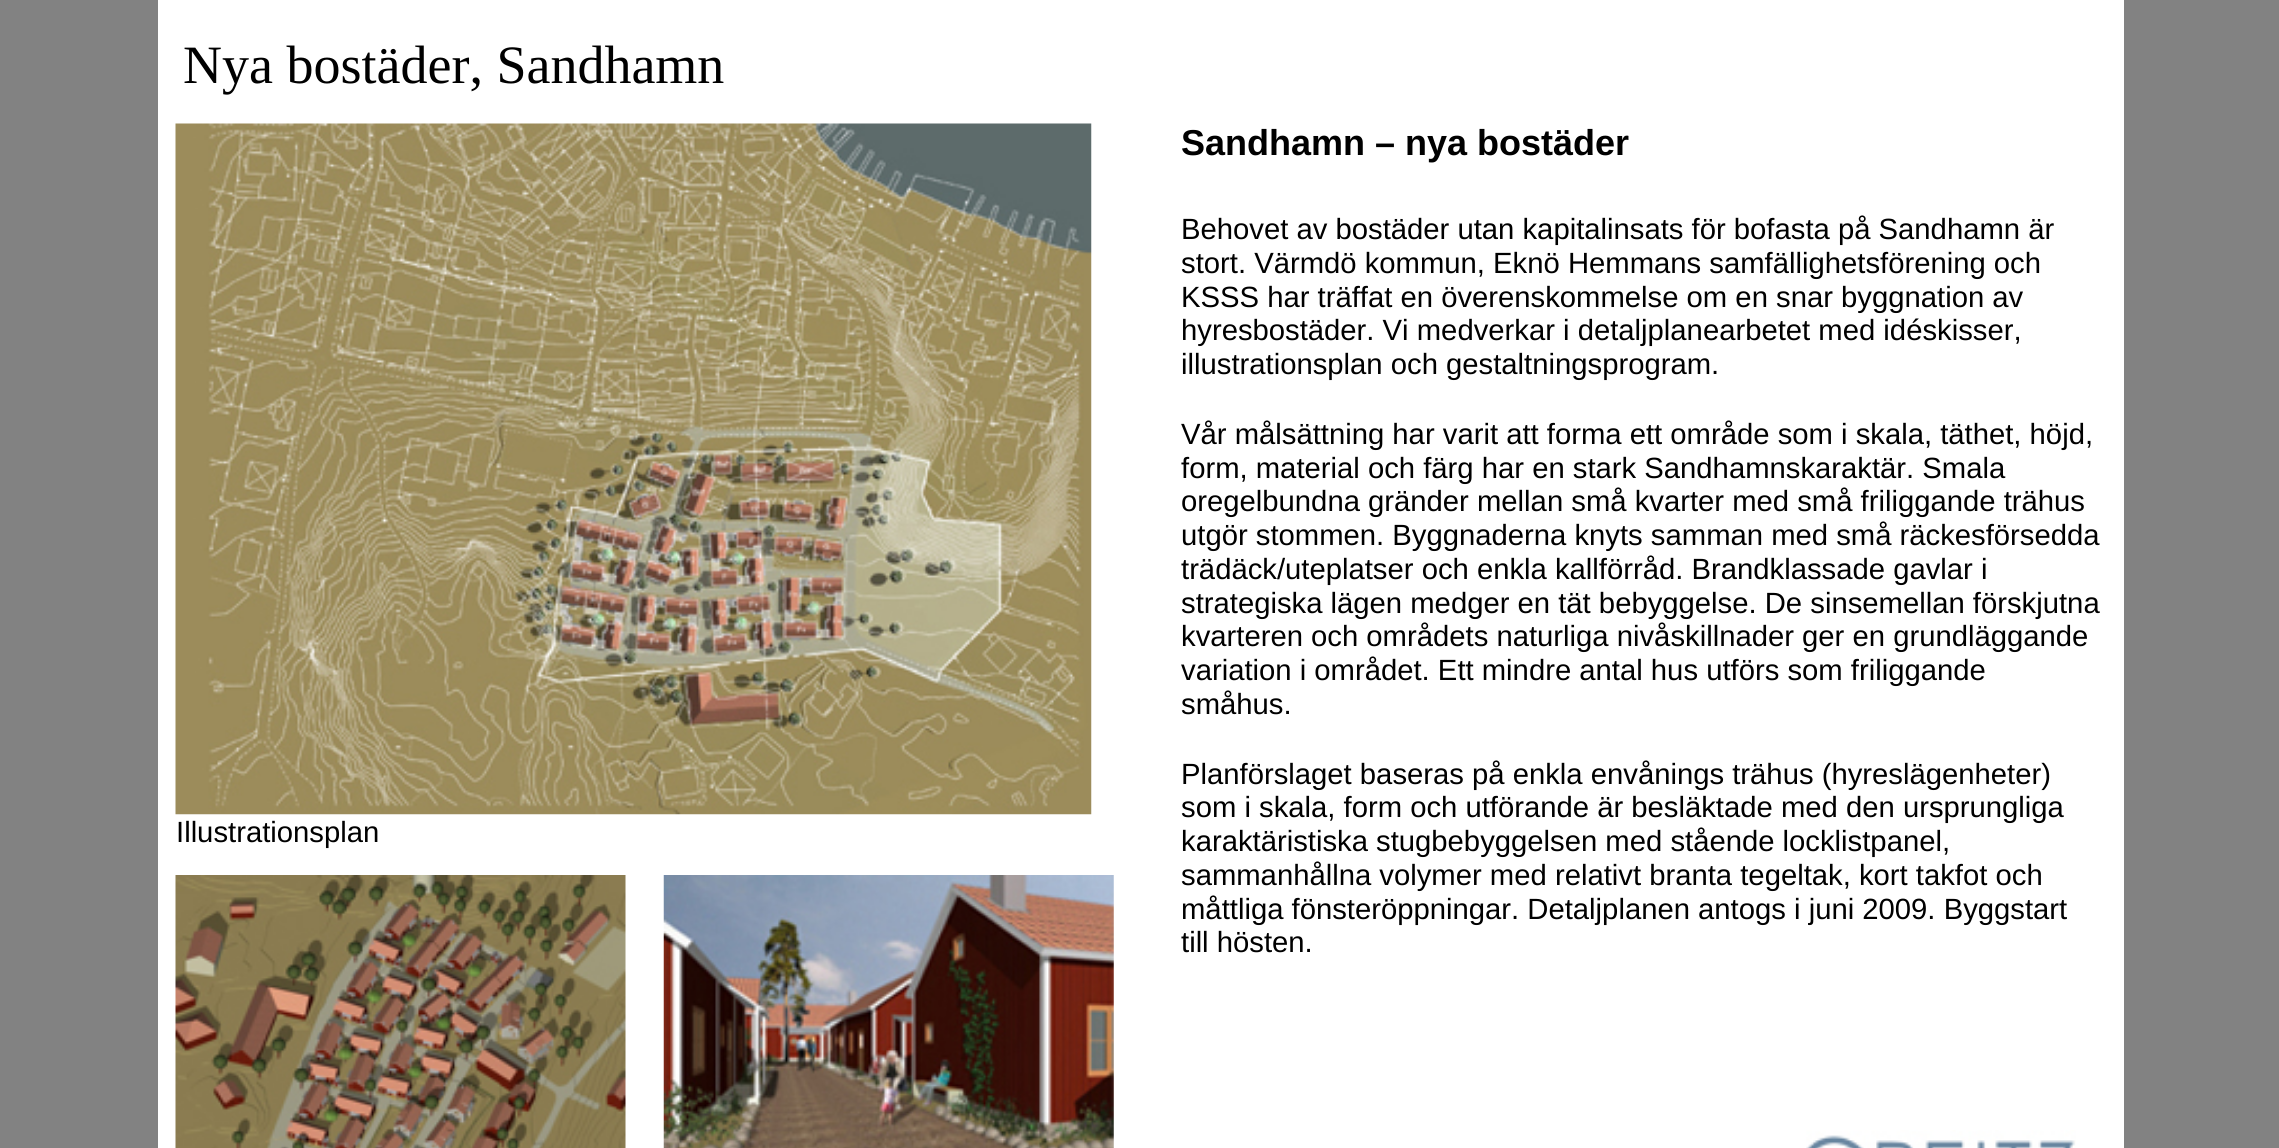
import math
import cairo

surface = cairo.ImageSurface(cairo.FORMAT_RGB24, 2279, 1148)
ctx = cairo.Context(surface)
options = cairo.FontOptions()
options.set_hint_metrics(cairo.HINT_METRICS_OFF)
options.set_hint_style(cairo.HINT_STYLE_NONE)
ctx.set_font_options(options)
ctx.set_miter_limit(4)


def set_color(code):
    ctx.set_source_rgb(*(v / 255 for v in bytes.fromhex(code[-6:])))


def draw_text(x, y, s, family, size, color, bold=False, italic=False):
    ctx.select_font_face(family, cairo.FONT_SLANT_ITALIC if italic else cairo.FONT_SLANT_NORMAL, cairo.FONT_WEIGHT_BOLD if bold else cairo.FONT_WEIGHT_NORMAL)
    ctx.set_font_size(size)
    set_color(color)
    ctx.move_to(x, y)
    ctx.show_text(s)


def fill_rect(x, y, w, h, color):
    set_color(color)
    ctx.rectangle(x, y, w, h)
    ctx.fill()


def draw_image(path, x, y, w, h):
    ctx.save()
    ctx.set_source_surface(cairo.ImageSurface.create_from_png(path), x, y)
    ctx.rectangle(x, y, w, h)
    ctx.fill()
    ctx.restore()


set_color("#828282")
ctx.paint()
fill_rect(158, 0, 1966, 1148, "#ffffff")
draw_text(183, 83, "Nya bostäder, Sandhamn", "Liberation Serif", 54, "#000000")
draw_text(176, 842, "Illustrationsplan", "Liberation Sans", 29.25, "#000000")
draw_image("assets/img1.png", 175, 123, 917, 692)
draw_text(1181, 155, "Sandhamn – nya bostäder", "Liberation Sans", 36, "#000000", bold=True)
draw_text(1181, 239, "Behovet av bostäder utan kapitalinsats för bofasta på Sandhamn är", "Liberation Sans", 29.25, "#000000")
draw_text(1181, 273, "stort. Värmdö kommun, Eknö Hemmans samfällighetsförening och", "Liberation Sans", 29.25, "#000000")
draw_text(1181, 307, "KSSS har träffat en överenskommelse om en snar byggnation av", "Liberation Sans", 29.25, "#000000")
draw_text(1181, 340, "hyresbostäder. Vi medverkar i detaljplanearbetet med idéskisser,", "Liberation Sans", 29.25, "#000000")
draw_text(1181, 374, "illustrationsplan och gestaltningsprogram.", "Liberation Sans", 29.25, "#000000")
draw_text(1181, 444, "Vår målsättning har varit att forma ett område som i skala, täthet, höjd,", "Liberation Sans", 29.25, "#000000")
draw_text(1181, 478, "form, material och färg har en stark Sandhamnskaraktär. Smala", "Liberation Sans", 29.25, "#000000")
draw_text(1181, 511, "oregelbundna gränder mellan små kvarter med små friliggande trähus", "Liberation Sans", 29.25, "#000000")
draw_text(1181, 545, "utgör stommen. Byggnaderna knyts samman med små räckesförsedda", "Liberation Sans", 29.25, "#000000")
draw_text(1181, 579, "trädäck/uteplatser och enkla kallförråd. Brandklassade gavlar i", "Liberation Sans", 29.25, "#000000")
draw_text(1181, 613, "strategiska lägen medger en tät bebyggelse. De sinsemellan förskjutna", "Liberation Sans", 29.25, "#000000")
draw_text(1181, 646, "kvarteren och områdets naturliga nivåskillnader ger en grundläggande", "Liberation Sans", 29.25, "#000000")
draw_text(1181, 680, "variation i området. Ett mindre antal hus utförs som friliggande", "Liberation Sans", 29.25, "#000000")
draw_text(1181, 714, "småhus.", "Liberation Sans", 29.25, "#000000")
draw_text(1181, 784, "Planförslaget baseras på enkla envånings trähus (hyreslägenheter)", "Liberation Sans", 29.25, "#000000")
draw_text(1181, 817, "som i skala, form och utförande är besläktade med den ursprungliga", "Liberation Sans", 29.25, "#000000")
draw_text(1181, 851, "karaktäristiska stugbebyggelsen med stående locklistpanel,", "Liberation Sans", 29.25, "#000000")
draw_text(1181, 885, "sammanhållna volymer med relativt branta tegeltak, kort takfot och", "Liberation Sans", 29.25, "#000000")
draw_text(1181, 919, "måttliga fönsteröppningar. Detaljplanen antogs i juni 2009. Byggstart", "Liberation Sans", 29.25, "#000000")
draw_text(1181, 952, "till hösten.", "Liberation Sans", 29.25, "#000000")
draw_image("assets/img2.png", 175, 875, 451, 273)
draw_image("assets/img3.png", 663, 875, 451, 273)
draw_image("assets/img4.png", 1806, 1130, 270, 18)
surface.write_to_png("output.png")
